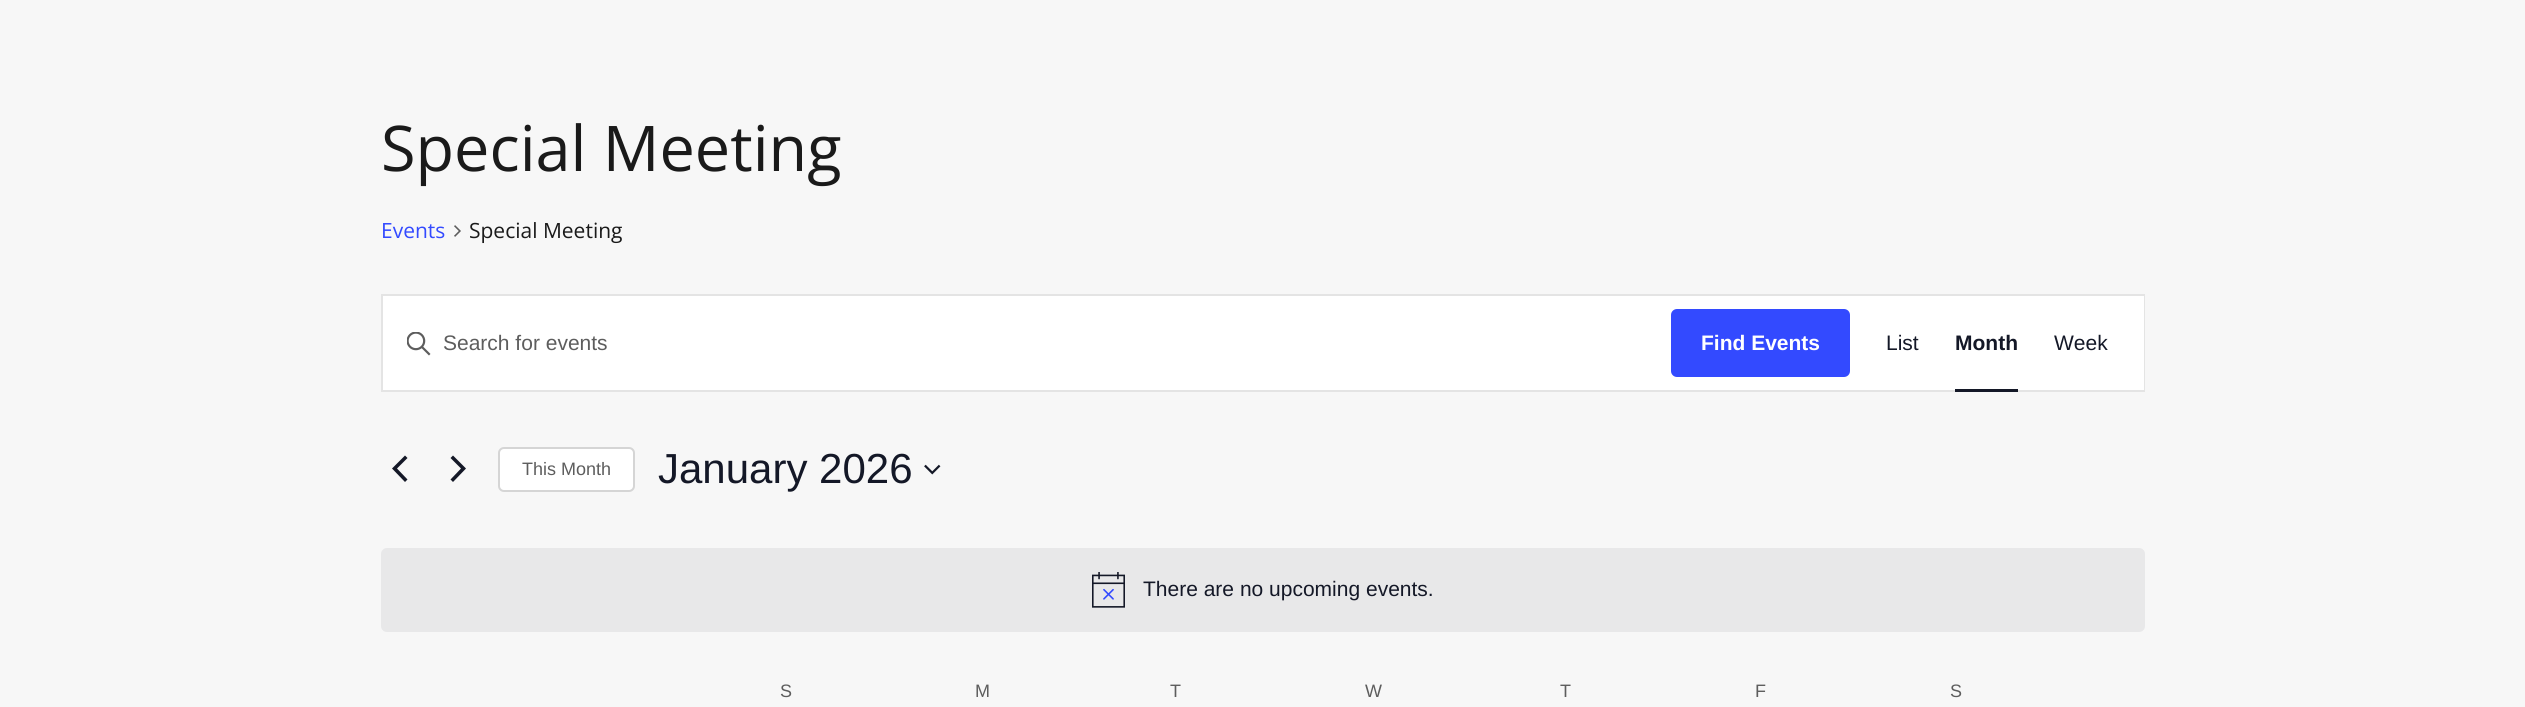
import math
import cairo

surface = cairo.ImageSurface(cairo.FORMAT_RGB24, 2525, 707)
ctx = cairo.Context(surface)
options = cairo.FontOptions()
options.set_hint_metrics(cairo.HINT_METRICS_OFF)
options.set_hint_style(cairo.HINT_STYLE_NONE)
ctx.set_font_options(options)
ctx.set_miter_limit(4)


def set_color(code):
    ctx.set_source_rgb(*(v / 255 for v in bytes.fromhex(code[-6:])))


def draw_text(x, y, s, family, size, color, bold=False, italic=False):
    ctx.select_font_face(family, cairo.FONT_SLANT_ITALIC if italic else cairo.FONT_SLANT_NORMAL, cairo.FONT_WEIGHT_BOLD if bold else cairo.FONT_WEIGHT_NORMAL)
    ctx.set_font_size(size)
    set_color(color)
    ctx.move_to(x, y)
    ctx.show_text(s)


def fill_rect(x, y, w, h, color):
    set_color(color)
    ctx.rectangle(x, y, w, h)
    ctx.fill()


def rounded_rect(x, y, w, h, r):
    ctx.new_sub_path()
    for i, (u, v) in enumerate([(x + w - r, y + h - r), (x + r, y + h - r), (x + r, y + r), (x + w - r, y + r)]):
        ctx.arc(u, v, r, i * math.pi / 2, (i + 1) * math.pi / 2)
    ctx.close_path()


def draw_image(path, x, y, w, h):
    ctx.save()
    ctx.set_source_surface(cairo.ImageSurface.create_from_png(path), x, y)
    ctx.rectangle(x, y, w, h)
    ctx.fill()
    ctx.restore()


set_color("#f7f7f7")
ctx.paint()
draw_text(381, 171, "Special Meeting", "Open Sans", 63, "#1a1a1a")
draw_text(381, 238, "Events", "Open Sans", 21, "#334aff")
draw_image("assets/img1.png", 454, 225, 7, 12)
draw_text(469, 238, "Special Meeting", "Open Sans", 21, "#1a1a1a")
fill_rect(383, 296, 1467, 94, "#ffffff")
ctx.rectangle(382, 295, 1762, 96)
set_color("#e4e4e4")
ctx.stroke()
draw_image("assets/img2.png", 407, 332, 24, 24)
draw_text(443, 350, "Search for events", "Liberation Sans", 21, "#5d5d5d")
set_color("#334aff")
rounded_rect(1671, 309, 179, 68, 6)
ctx.fill()
draw_text(1701, 350, "Find Events", "Liberation Sans", 21, "#ffffff", bold=True)
fill_rect(1850, 296, 294, 94, "#ffffff")
draw_text(1886, 350, "List", "Liberation Sans", 21, "#141827")
draw_text(1955, 350, "Month", "Liberation Sans", 21, "#141827", bold=True)
fill_rect(1955, 389, 63, 3, "#141827")
draw_text(2054, 350, "Week", "Liberation Sans", 21, "#141827")
ctx.new_path()
ctx.move_to(407.5, 479.5)
ctx.line_to(405, 482)
ctx.line_to(392, 468.5)
ctx.line_to(405, 455.5)
ctx.line_to(407.5, 458)
ctx.line_to(397, 468.5)
ctx.close_path()
ctx.fill()
ctx.new_path()
ctx.move_to(450.5, 458)
ctx.line_to(453, 455.5)
ctx.line_to(466, 468.5)
ctx.line_to(453, 482)
ctx.line_to(450.5, 479.5)
ctx.line_to(461, 468.5)
ctx.close_path()
ctx.fill()
set_color("#ffffff")
rounded_rect(499, 448, 135, 43, 5)
ctx.fill_preserve()
set_color("#d5d5d5")
ctx.stroke()
draw_text(522, 475, "This Month", "Liberation Sans", 18, "#5d5d5d")
draw_text(658, 483, "January 2026", "Liberation Sans", 42, "#141827")
draw_image("assets/img3.png", 924, 464, 17, 11)
set_color("#e8e8e9")
rounded_rect(381, 548, 1764, 84, 6)
ctx.fill()
draw_image("assets/img4.png", 1092, 572, 33, 36)
draw_text(1143, 596, "There are no upcoming events.", "Liberation Sans", 21, "#141827")
draw_text(780, 697, "S", "Liberation Sans", 18, "#5d5d5d")
draw_text(975, 697, "M", "Liberation Sans", 18, "#5d5d5d")
draw_text(1170, 697, "T", "Liberation Sans", 18, "#5d5d5d")
draw_text(1365, 697, "W", "Liberation Sans", 18, "#5d5d5d")
draw_text(1560, 697, "T", "Liberation Sans", 18, "#5d5d5d")
draw_text(1755, 697, "F", "Liberation Sans", 18, "#5d5d5d")
draw_text(1950, 697, "S", "Liberation Sans", 18, "#5d5d5d")
surface.write_to_png("output.png")
